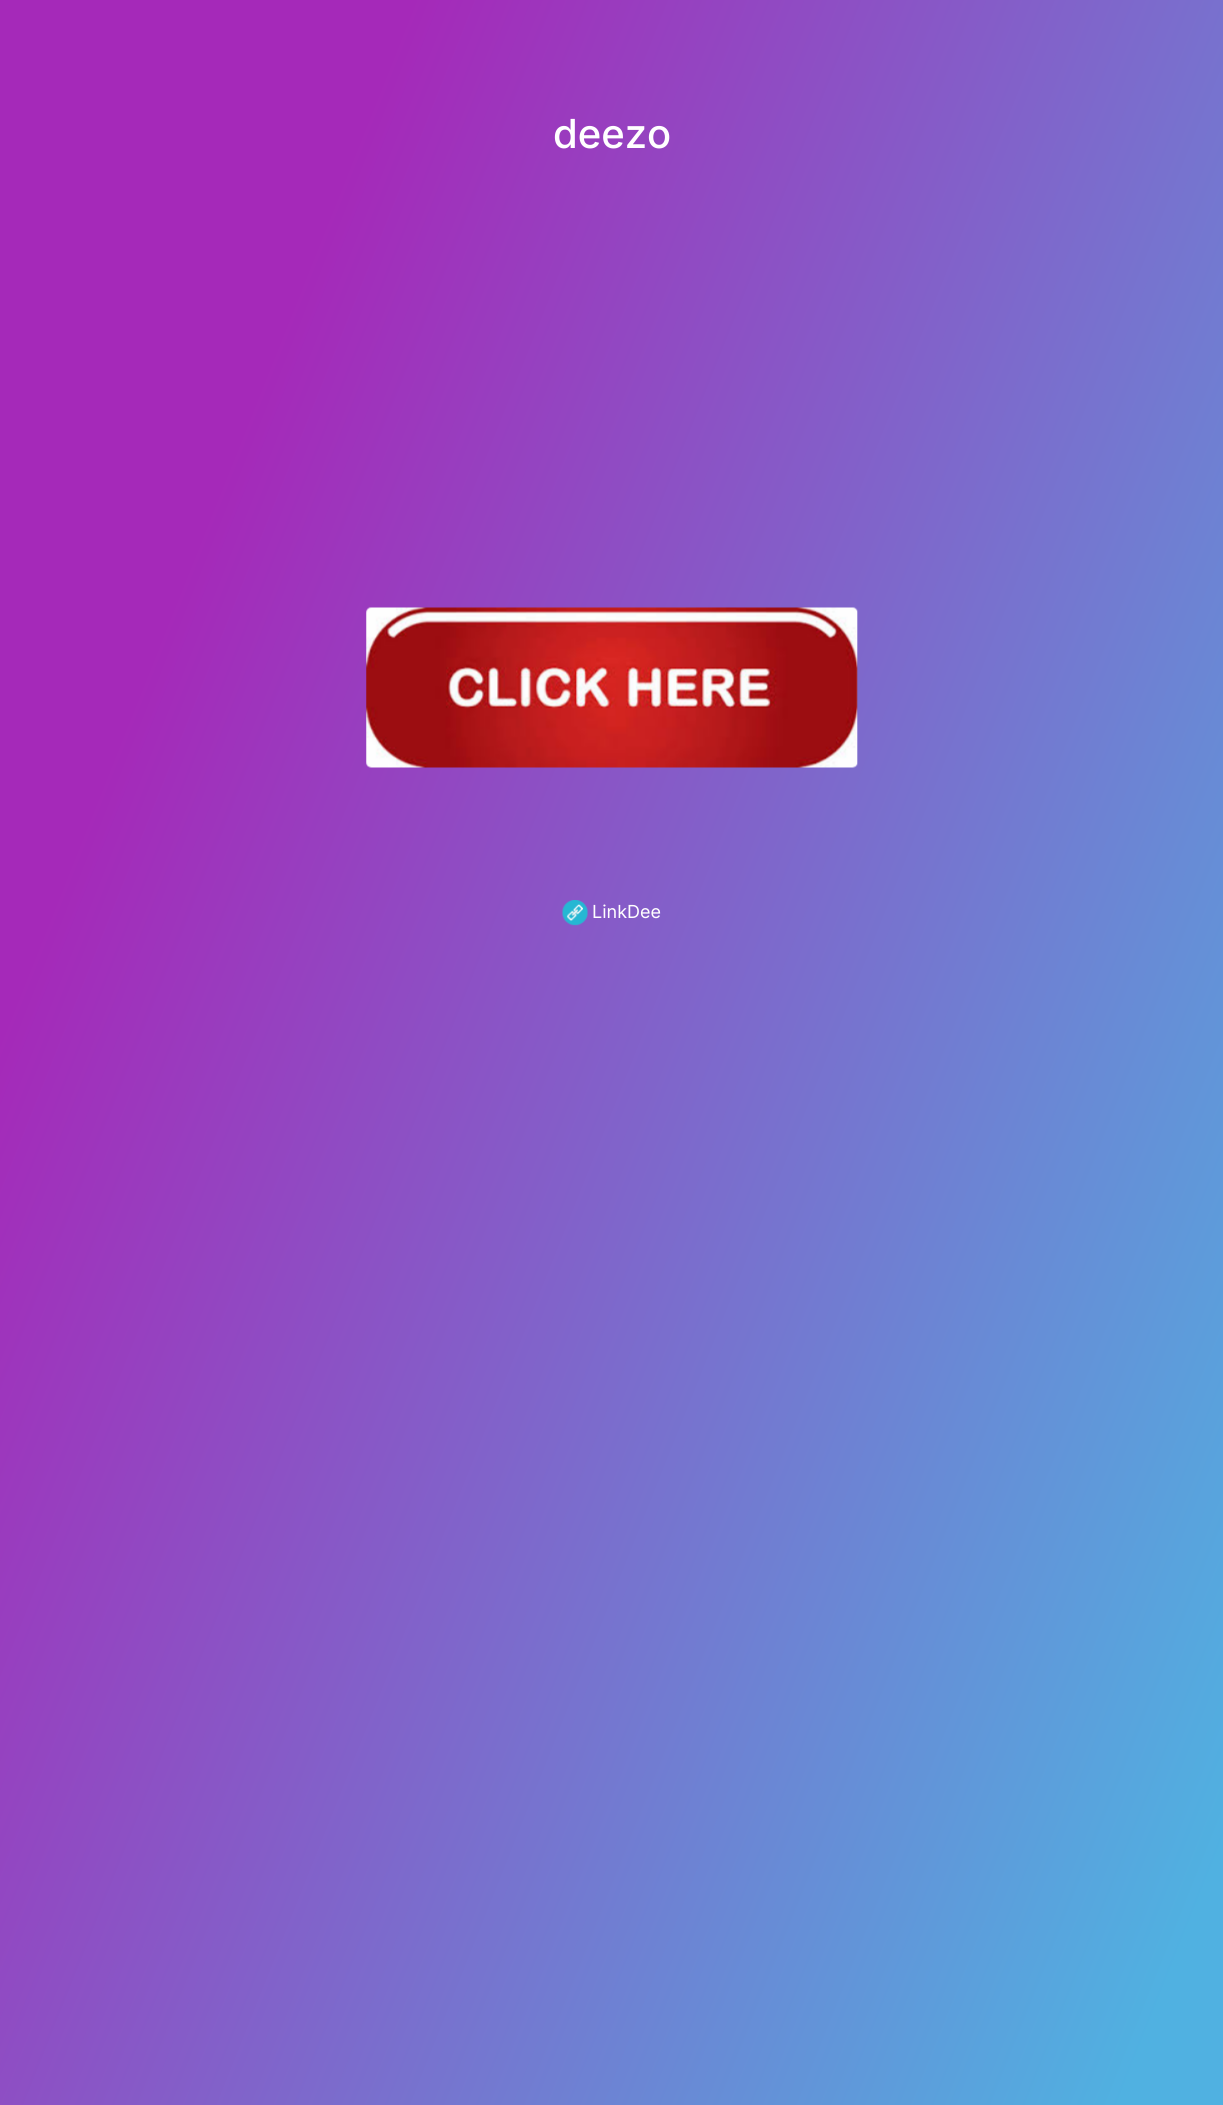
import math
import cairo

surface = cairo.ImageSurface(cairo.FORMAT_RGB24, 1223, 2105)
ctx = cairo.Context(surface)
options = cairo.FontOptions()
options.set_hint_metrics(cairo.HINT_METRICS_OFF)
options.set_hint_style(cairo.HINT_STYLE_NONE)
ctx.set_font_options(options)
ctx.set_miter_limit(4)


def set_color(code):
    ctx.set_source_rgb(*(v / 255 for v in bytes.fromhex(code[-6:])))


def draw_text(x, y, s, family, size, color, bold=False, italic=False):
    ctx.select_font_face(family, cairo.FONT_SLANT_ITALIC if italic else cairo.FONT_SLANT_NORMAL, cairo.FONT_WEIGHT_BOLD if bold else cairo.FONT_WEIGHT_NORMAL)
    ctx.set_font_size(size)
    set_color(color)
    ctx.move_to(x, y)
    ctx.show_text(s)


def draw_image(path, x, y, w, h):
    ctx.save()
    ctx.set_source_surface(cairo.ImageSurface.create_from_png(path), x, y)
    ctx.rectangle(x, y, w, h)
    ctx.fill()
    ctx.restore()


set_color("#ffffff")
ctx.paint()
gradient = cairo.LinearGradient(-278, 698, 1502, 1407)
gradient.add_color_stop_rgba(0.2, 0.647, 0.161, 0.725, 1)
gradient.add_color_stop_rgba(0.95, 0.314, 0.694, 0.882, 1)
ctx.set_source(gradient)
ctx.rectangle(0, 0, 1223, 2105)
ctx.fill()
draw_text(553, 148, "deezo", "Inter Medium", 40, "#ffffff")
draw_image("assets/img1.png", 366, 607, 492, 161)
draw_image("assets/img2.png", 562, 900, 26, 26)
draw_text(592, 918, "LinkDee", "Inter", 18, "#ffffff")
surface.write_to_png("output.png")
